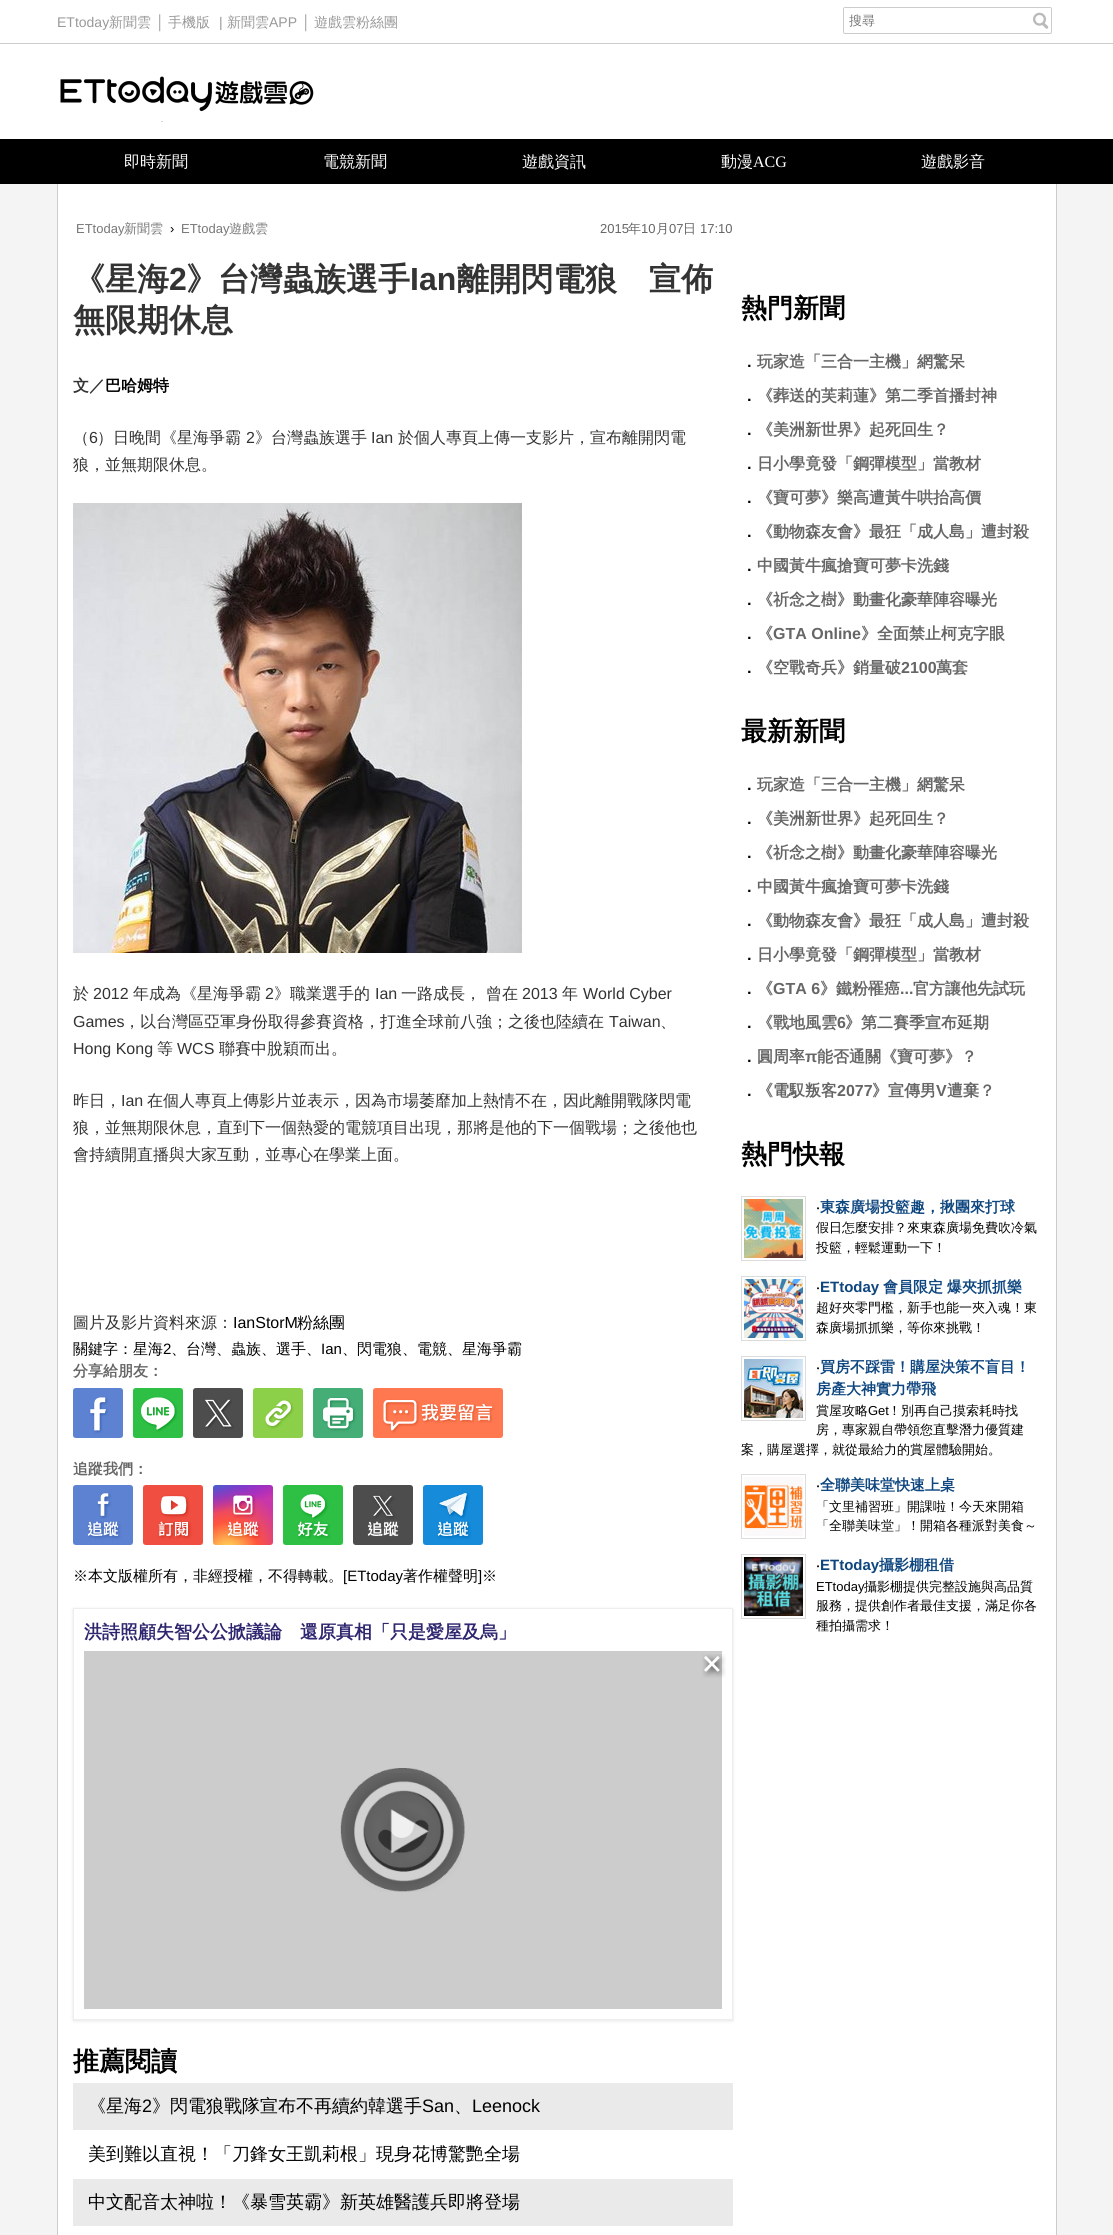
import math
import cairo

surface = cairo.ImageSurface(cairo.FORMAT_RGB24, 1113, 2235)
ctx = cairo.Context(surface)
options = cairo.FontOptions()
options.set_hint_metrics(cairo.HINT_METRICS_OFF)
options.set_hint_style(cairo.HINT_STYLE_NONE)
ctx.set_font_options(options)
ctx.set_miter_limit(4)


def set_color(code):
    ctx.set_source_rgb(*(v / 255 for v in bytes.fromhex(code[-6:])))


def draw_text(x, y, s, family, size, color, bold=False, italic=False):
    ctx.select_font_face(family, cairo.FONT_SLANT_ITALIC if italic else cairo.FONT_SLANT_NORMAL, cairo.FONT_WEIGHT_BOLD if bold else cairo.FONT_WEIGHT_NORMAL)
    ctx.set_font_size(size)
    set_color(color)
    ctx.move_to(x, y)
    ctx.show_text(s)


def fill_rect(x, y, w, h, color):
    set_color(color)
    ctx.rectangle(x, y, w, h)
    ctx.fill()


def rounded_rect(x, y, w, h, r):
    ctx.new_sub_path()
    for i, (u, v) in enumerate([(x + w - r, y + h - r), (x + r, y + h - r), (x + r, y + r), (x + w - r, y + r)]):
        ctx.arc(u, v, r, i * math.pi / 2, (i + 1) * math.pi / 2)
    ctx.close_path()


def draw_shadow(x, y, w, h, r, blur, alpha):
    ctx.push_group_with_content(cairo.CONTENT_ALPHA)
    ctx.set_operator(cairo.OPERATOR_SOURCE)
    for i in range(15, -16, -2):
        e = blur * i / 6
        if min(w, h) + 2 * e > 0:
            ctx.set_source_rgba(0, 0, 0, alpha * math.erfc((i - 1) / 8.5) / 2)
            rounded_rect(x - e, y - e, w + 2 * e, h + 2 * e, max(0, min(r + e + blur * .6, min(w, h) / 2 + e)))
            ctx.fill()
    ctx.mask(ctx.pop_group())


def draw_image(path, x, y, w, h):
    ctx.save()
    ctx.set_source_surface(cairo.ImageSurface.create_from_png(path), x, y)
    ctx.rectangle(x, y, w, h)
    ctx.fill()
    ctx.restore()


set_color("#f4f4f4")
ctx.paint()
fill_rect(0, 0, 1113, 43, "#ffffff")
fill_rect(0, 43, 1113, 1, "#cccccc")
draw_text(57, 27, "ETtoday", "Liberation Sans", 14, "#999999")
draw_text(109, 27, "新聞雲", "WenQuanYi Zen Hei Medium", 14, "#999999")
draw_text(156, 27, "│", "Liberation Sans", 14, "#999999")
draw_text(168, 27, "手機版", "WenQuanYi Zen Hei Medium", 14, "#999999")
draw_text(219, 27, "|", "Liberation Sans", 14, "#999999")
draw_text(227, 27, "新聞雲", "WenQuanYi Zen Hei Medium", 14, "#999999")
draw_text(269, 27, "APP", "Liberation Sans", 14, "#999999")
draw_text(302, 27, "│", "Liberation Sans", 14, "#999999")
draw_text(314, 27, "遊戲雲粉絲團", "WenQuanYi Zen Hei Medium", 14, "#999999")
draw_image("assets/img1.png", 1033, 12, 16, 17)
rounded_rect(843.5, 7.5, 208, 26, 1.5)
set_color("#cccccc")
ctx.set_line_width(1)
ctx.stroke()
draw_text(849, 25, "搜尋", "WenQuanYi Zen Hei Medium", 13, "#777777")
fill_rect(0, 44, 1113, 95, "#ffffff")
draw_image("assets/img2.png", 60, 76, 254, 46)
fill_rect(0, 139, 1113, 45, "#000000")
draw_text(124, 167, "即時新聞", "WenQuanYi Zen Hei Medium", 16, "#ffffff")
draw_text(323, 167, "電競新聞", "WenQuanYi Zen Hei Medium", 16, "#ffffff")
draw_text(522, 167, "遊戲資訊", "WenQuanYi Zen Hei Medium", 16, "#ffffff")
draw_text(721, 167, "動漫", "WenQuanYi Zen Hei Medium", 16, "#ffffff")
draw_text(753, 167, "ACG", "Liberation Serif", 16, "#ffffff")
draw_text(921, 167, "遊戲影音", "WenQuanYi Zen Hei Medium", 16, "#ffffff")
fill_rect(58, 184, 998, 2051, "#ffffff")
fill_rect(1056, 184, 1, 2051, "#cccccc")
fill_rect(57, 184, 1, 2051, "#cccccc")
draw_text(76, 233, "ETtoday", "Liberation Sans", 13, "#777777")
draw_text(124, 233, "新聞雲", "WenQuanYi Zen Hei Medium", 13, "#777777")
draw_text(170, 233, "›", "Liberation Sans", 13, "#000000")
draw_text(181, 233, "ETtoday", "Liberation Sans", 13, "#777777")
draw_text(229, 233, "遊戲雲", "WenQuanYi Zen Hei Medium", 13, "#777777")
draw_text(600, 233, "2015", "Liberation Sans", 13, "#666666")
draw_text(628, 233, "年", "WenQuanYi Zen Hei Medium", 13, "#666666")
draw_text(641, 233, "10", "Liberation Sans", 13, "#666666")
draw_text(656, 233, "月", "WenQuanYi Zen Hei Medium", 13, "#666666")
draw_text(669, 233, "07", "Liberation Sans", 13, "#666666")
draw_text(683, 233, "日", "WenQuanYi Zen Hei Medium", 13, "#666666")
draw_text(700, 233, "17:10", "Liberation Sans", 13, "#666666")
draw_text(73, 290, "《星海", "WenQuanYi Zen Hei", 32, "#333333", bold=True)
draw_text(169, 290, "2", "Liberation Sans", 32, "#333333", bold=True)
draw_text(186, 290, "》台灣蟲族選手", "WenQuanYi Zen Hei", 32, "#333333", bold=True)
draw_text(410, 290, "Ian", "Liberation Sans", 32, "#333333", bold=True)
draw_text(457, 290, "離開閃電狼　宣佈", "WenQuanYi Zen Hei", 32, "#333333", bold=True)
draw_text(73, 331, "無限期休息", "WenQuanYi Zen Hei", 32, "#333333", bold=True)
draw_text(73, 391, "文／", "WenQuanYi Zen Hei", 16, "#333333", bold=True)
draw_text(105, 391, "巴哈姆特", "WenQuanYi Zen Hei", 16, "#000000", bold=True)
draw_text(73, 443, "（", "WenQuanYi Zen Hei Medium", 16, "#333333")
draw_text(89, 443, "6", "Liberation Sans", 16, "#333333")
draw_text(97, 443, "）日晚間《星海爭霸", "WenQuanYi Zen Hei Medium", 16, "#333333")
draw_text(246, 443, "2", "Liberation Sans", 16, "#333333")
draw_text(255, 443, "》台灣蟲族選手", "WenQuanYi Zen Hei Medium", 16, "#333333")
draw_text(371, 443, "Ian", "Liberation Sans", 16, "#333333")
draw_text(398, 443, "於個人專頁上傳一支影片，宣布離開閃電", "WenQuanYi Zen Hei Medium", 16, "#333333")
draw_text(73, 470, "狼，並無期限休息。", "WenQuanYi Zen Hei Medium", 16, "#333333")
draw_image("assets/img3.png", 73, 503, 449, 450)
draw_text(73, 999, "於", "WenQuanYi Zen Hei Medium", 16, "#333333")
draw_text(93, 999, "2012", "Liberation Sans", 16, "#333333")
draw_text(133, 999, "年成為《星海爭霸", "WenQuanYi Zen Hei Medium", 16, "#333333")
draw_text(265, 999, "2", "Liberation Sans", 16, "#333333")
draw_text(274, 999, "》職業選手的", "WenQuanYi Zen Hei Medium", 16, "#333333")
draw_text(375, 999, "Ian", "Liberation Sans", 16, "#333333")
draw_text(401, 999, "一路成長，", "WenQuanYi Zen Hei Medium", 16, "#333333")
draw_text(486, 999, "曾在", "WenQuanYi Zen Hei Medium", 16, "#333333")
draw_text(522, 999, "2013", "Liberation Sans", 16, "#333333")
draw_text(562, 999, "年", "WenQuanYi Zen Hei Medium", 16, "#333333")
draw_text(583, 999, "World Cyber", "Liberation Sans", 16, "#333333")
draw_text(73, 1027, "Games", "Liberation Sans", 16, "#333333")
draw_text(124, 1027, "，以台灣區亞軍身份取得參賽資格，打進全球前八強；之後也陸續在", "WenQuanYi Zen Hei Medium", 16, "#333333")
draw_text(609, 1027, "Taiwan", "Liberation Sans", 16, "#333333")
draw_text(660, 1027, "、", "WenQuanYi Zen Hei Medium", 16, "#333333")
draw_text(73, 1054, "Hong Kong", "Liberation Sans", 16, "#333333")
draw_text(157, 1054, "等", "WenQuanYi Zen Hei Medium", 16, "#333333")
draw_text(177, 1054, "WCS", "Liberation Sans", 16, "#333333")
draw_text(219, 1054, "聯賽中脫穎而出。", "WenQuanYi Zen Hei Medium", 16, "#333333")
draw_text(73, 1106, "昨日，", "WenQuanYi Zen Hei Medium", 16, "#333333")
draw_text(121, 1106, "Ian", "Liberation Sans", 16, "#333333")
draw_text(147, 1106, "在個人專頁上傳影片並表示，因為市場萎靡加上熱情不在，因此離開戰隊閃電", "WenQuanYi Zen Hei Medium", 16, "#333333")
draw_text(73, 1133, "狼，並無期限休息，直到下一個熱愛的電競項目出現，那將是他的下一個戰場；之後他也", "WenQuanYi Zen Hei Medium", 16, "#333333")
draw_text(73, 1160, "會持續開直播與大家互動，並專心在學業上面。", "WenQuanYi Zen Hei Medium", 16, "#333333")
draw_text(73, 1328, "圖片及影片資料來源：", "WenQuanYi Zen Hei Medium", 16, "#333333")
draw_text(233, 1328, "IanStorM", "Liberation Sans", 16, "#000000")
draw_text(297, 1328, "粉絲團", "WenQuanYi Zen Hei Medium", 16, "#000000")
draw_text(73, 1354, "關鍵字：星海", "WenQuanYi Zen Hei Medium", 15, "#000000")
draw_text(163, 1354, "2", "Liberation Sans", 15, "#000000")
draw_text(171, 1354, "、台灣、蟲族、選手、", "WenQuanYi Zen Hei Medium", 15, "#000000")
draw_text(321, 1354, "Ian", "Liberation Sans", 15, "#000000")
draw_text(342, 1354, "、閃電狼、電競、星海爭霸", "WenQuanYi Zen Hei Medium", 15, "#000000")
draw_text(73, 1376, "分享給朋友：", "WenQuanYi Zen Hei", 15, "#666666", bold=True)
draw_image("assets/img4.png", 73, 1388, 50, 50)
draw_image("assets/img5.png", 133, 1388, 50, 50)
draw_image("assets/img6.png", 193, 1388, 50, 50)
draw_image("assets/img7.png", 253, 1388, 50, 50)
draw_image("assets/img8.png", 313, 1388, 50, 50)
draw_image("assets/img9.png", 373, 1388, 130, 50)
draw_text(73, 1474, "追蹤我們：", "WenQuanYi Zen Hei", 15, "#666666", bold=True)
draw_image("assets/img10.png", 73, 1485, 60, 60)
draw_image("assets/img11.png", 143, 1485, 60, 60)
draw_image("assets/img12.png", 213, 1485, 60, 60)
draw_image("assets/img13.png", 283, 1485, 60, 60)
draw_image("assets/img14.png", 353, 1485, 60, 60)
draw_image("assets/img15.png", 423, 1485, 60, 60)
draw_text(73, 1581, "※本文版權所有，非經授權，不得轉載。", "WenQuanYi Zen Hei Medium", 15, "#000000")
draw_text(343, 1581, "[ETtoday", "Liberation Sans", 15, "#000000")
draw_text(403, 1581, "著作權聲明", "WenQuanYi Zen Hei Medium", 15, "#000000")
draw_text(478, 1581, "]", "Liberation Sans", 15, "#000000")
draw_text(482, 1581, "※", "WenQuanYi Zen Hei Medium", 15, "#000000")
ctx.save()
ctx.set_fill_rule(cairo.FILL_RULE_EVEN_ODD)
ctx.new_path()
ctx.move_to(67, 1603)
ctx.line_to(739, 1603)
ctx.line_to(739, 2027)
ctx.line_to(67, 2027)
ctx.close_path()
ctx.move_to(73, 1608)
ctx.line_to(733, 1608)
ctx.line_to(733, 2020)
ctx.line_to(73, 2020)
ctx.close_path()
ctx.clip()
set_color("#000000")
draw_shadow(73, 1609, 660, 412, 0, 1.5, 0.1)
ctx.restore()
ctx.rectangle(73.5, 1608.5, 659, 411)
set_color("#eeeeee")
ctx.stroke()
draw_text(84, 1638, "洪詩照顧失智公公掀議論　還原真相「只是愛屋及烏」", "WenQuanYi Zen Hei", 18, "#2e266f", bold=True)
draw_image("assets/img16.png", 84, 1651, 638, 358)
draw_image("assets/img17.png", 345, 1773, 117, 119)
draw_image("assets/img18.png", 702, 1654, 24, 24)
draw_text(73, 2070, "推薦閱讀", "WenQuanYi Zen Hei", 26, "#000000", bold=True)
fill_rect(73, 2083, 660, 47, "#eaeaea")
draw_text(88, 2112, "《星海", "WenQuanYi Zen Hei Medium", 18, "#000000")
draw_text(142, 2112, "2", "Liberation Sans", 18, "#000000")
draw_text(152, 2112, "》閃電狼戰隊宣布不再續約韓選手", "WenQuanYi Zen Hei Medium", 18, "#000000")
draw_text(422, 2112, "San", "Liberation Sans", 18, "#000000")
draw_text(454, 2112, "、", "WenQuanYi Zen Hei Medium", 18, "#000000")
draw_text(472, 2112, "Leenock", "Liberation Sans", 18, "#000000")
draw_text(88, 2160, "美到難以直視！「刀鋒女王凱莉根」現身花博驚艷全場", "WenQuanYi Zen Hei Medium", 18, "#000000")
fill_rect(73, 2179, 660, 47, "#eaeaea")
draw_text(88, 2208, "中文配音太神啦！《暴雪英霸》新英雄醫護兵即將登場", "WenQuanYi Zen Hei Medium", 18, "#000000")
draw_text(741, 317, "熱門新聞", "WenQuanYi Zen Hei", 26, "#000000", bold=True)
draw_text(741, 367, "．", "WenQuanYi Zen Hei", 16, "#000000", bold=True)
draw_text(757, 367, "玩家造「三合一主機」網驚呆", "WenQuanYi Zen Hei", 16, "#666666", bold=True)
draw_text(741, 401, "．", "WenQuanYi Zen Hei", 16, "#000000", bold=True)
draw_text(757, 401, "《葬送的芙莉蓮》第二季首播封神", "WenQuanYi Zen Hei", 16, "#666666", bold=True)
draw_text(741, 435, "．", "WenQuanYi Zen Hei", 16, "#000000", bold=True)
draw_text(757, 435, "《美洲新世界》起死回生？", "WenQuanYi Zen Hei", 16, "#666666", bold=True)
draw_text(741, 469, "．", "WenQuanYi Zen Hei", 16, "#000000", bold=True)
draw_text(757, 469, "日小學竟發「鋼彈模型」當教材", "WenQuanYi Zen Hei", 16, "#666666", bold=True)
draw_text(741, 503, "．", "WenQuanYi Zen Hei", 16, "#000000", bold=True)
draw_text(757, 503, "《寶可夢》樂高遭黃牛哄抬高價", "WenQuanYi Zen Hei", 16, "#666666", bold=True)
draw_text(741, 537, "．", "WenQuanYi Zen Hei", 16, "#000000", bold=True)
draw_text(757, 537, "《動物森友會》最狂「成人島」遭封殺", "WenQuanYi Zen Hei", 16, "#666666", bold=True)
draw_text(741, 571, "．", "WenQuanYi Zen Hei", 16, "#000000", bold=True)
draw_text(757, 571, "中國黃牛瘋搶寶可夢卡洗錢", "WenQuanYi Zen Hei", 16, "#666666", bold=True)
draw_text(741, 605, "．", "WenQuanYi Zen Hei", 16, "#000000", bold=True)
draw_text(757, 605, "《祈念之樹》動畫化豪華陣容曝光", "WenQuanYi Zen Hei", 16, "#666666", bold=True)
draw_text(741, 639, "．", "WenQuanYi Zen Hei", 16, "#000000", bold=True)
draw_text(757, 639, "《", "WenQuanYi Zen Hei", 16, "#666666", bold=True)
draw_text(773, 639, "GTA Online", "Liberation Sans", 16, "#666666", bold=True)
draw_text(861, 639, "》全面禁止柯克字眼", "WenQuanYi Zen Hei", 16, "#666666", bold=True)
draw_text(741, 673, "．", "WenQuanYi Zen Hei", 16, "#000000", bold=True)
draw_text(757, 673, "《空戰奇兵》銷量破", "WenQuanYi Zen Hei", 16, "#666666", bold=True)
draw_text(901, 673, "2100", "Liberation Sans", 16, "#666666", bold=True)
draw_text(936, 673, "萬套", "WenQuanYi Zen Hei", 16, "#666666", bold=True)
draw_text(741, 740, "最新新聞", "WenQuanYi Zen Hei", 26, "#000000", bold=True)
draw_text(741, 790, "．", "WenQuanYi Zen Hei", 16, "#000000", bold=True)
draw_text(757, 790, "玩家造「三合一主機」網驚呆", "WenQuanYi Zen Hei", 16, "#666666", bold=True)
draw_text(741, 824, "．", "WenQuanYi Zen Hei", 16, "#000000", bold=True)
draw_text(757, 824, "《美洲新世界》起死回生？", "WenQuanYi Zen Hei", 16, "#666666", bold=True)
draw_text(741, 858, "．", "WenQuanYi Zen Hei", 16, "#000000", bold=True)
draw_text(757, 858, "《祈念之樹》動畫化豪華陣容曝光", "WenQuanYi Zen Hei", 16, "#666666", bold=True)
draw_text(741, 892, "．", "WenQuanYi Zen Hei", 16, "#000000", bold=True)
draw_text(757, 892, "中國黃牛瘋搶寶可夢卡洗錢", "WenQuanYi Zen Hei", 16, "#666666", bold=True)
draw_text(741, 926, "．", "WenQuanYi Zen Hei", 16, "#000000", bold=True)
draw_text(757, 926, "《動物森友會》最狂「成人島」遭封殺", "WenQuanYi Zen Hei", 16, "#666666", bold=True)
draw_text(741, 960, "．", "WenQuanYi Zen Hei", 16, "#000000", bold=True)
draw_text(757, 960, "日小學竟發「鋼彈模型」當教材", "WenQuanYi Zen Hei", 16, "#666666", bold=True)
draw_text(741, 994, "．", "WenQuanYi Zen Hei", 16, "#000000", bold=True)
draw_text(757, 994, "《", "WenQuanYi Zen Hei", 16, "#666666", bold=True)
draw_text(773, 994, "GTA 6", "Liberation Sans", 16, "#666666", bold=True)
draw_text(820, 994, "》鐵粉罹癌", "WenQuanYi Zen Hei", 16, "#666666", bold=True)
draw_text(900, 994, "...", "Liberation Sans", 16, "#666666", bold=True)
draw_text(913, 994, "官方讓他先試玩", "WenQuanYi Zen Hei", 16, "#666666", bold=True)
draw_text(741, 1028, "．", "WenQuanYi Zen Hei", 16, "#000000", bold=True)
draw_text(757, 1028, "《戰地風雲", "WenQuanYi Zen Hei", 16, "#666666", bold=True)
draw_text(837, 1028, "6", "Liberation Sans", 16, "#666666", bold=True)
draw_text(845, 1028, "》第二賽季宣布延期", "WenQuanYi Zen Hei", 16, "#666666", bold=True)
draw_text(741, 1062, "．", "WenQuanYi Zen Hei", 16, "#000000", bold=True)
draw_text(757, 1062, "圓周率", "WenQuanYi Zen Hei", 16, "#666666", bold=True)
draw_text(805, 1062, "π", "Liberation Sans", 16, "#666666", bold=True)
draw_text(817, 1062, "能否通關《寶可夢》？", "WenQuanYi Zen Hei", 16, "#666666", bold=True)
draw_text(741, 1096, "．", "WenQuanYi Zen Hei", 16, "#000000", bold=True)
draw_text(757, 1096, "《電馭叛客", "WenQuanYi Zen Hei", 16, "#666666", bold=True)
draw_text(837, 1096, "2077", "Liberation Sans", 16, "#666666", bold=True)
draw_text(872, 1096, "》宣傳男", "WenQuanYi Zen Hei", 16, "#666666", bold=True)
draw_text(936, 1096, "V", "Liberation Sans", 16, "#666666", bold=True)
draw_text(947, 1096, "遭棄？", "WenQuanYi Zen Hei", 16, "#666666", bold=True)
draw_text(741, 1163, "熱門快報", "WenQuanYi Zen Hei", 26, "#000000", bold=True)
ctx.rectangle(741.5, 1196.5, 64, 64)
set_color("#dcdcdc")
ctx.stroke()
draw_image("assets/img19.png", 744, 1199, 59, 59)
draw_text(816, 1212, "‧", "Noto Sans", 15, "#000000")
draw_text(820, 1212, "東森廣場投籃趣，揪團來打球", "WenQuanYi Zen Hei", 15, "#0e467f", bold=True)
draw_text(816, 1232, "假日怎麼安排？來東森廣場免費吹冷氣", "WenQuanYi Zen Hei Medium", 13, "#000000")
draw_text(816, 1252, "投籃，輕鬆運動一下！", "WenQuanYi Zen Hei Medium", 13, "#000000")
ctx.rectangle(741.5, 1276.5, 64, 64)
set_color("#dcdcdc")
ctx.stroke()
draw_image("assets/img20.png", 744, 1279, 59, 59)
draw_text(816, 1292, "‧", "Noto Sans", 15, "#000000")
draw_text(820, 1292, "ETtoday", "Liberation Sans", 15, "#0e467f", bold=True)
draw_text(883, 1292, "會員限定", "WenQuanYi Zen Hei", 15, "#0e467f", bold=True)
draw_text(947, 1292, "爆夾抓抓樂", "WenQuanYi Zen Hei", 15, "#0e467f", bold=True)
draw_text(816, 1312, "超好夾零門檻，新手也能一夾入魂！東", "WenQuanYi Zen Hei Medium", 13, "#000000")
draw_text(816, 1332, "森廣場抓抓樂，等你來挑戰！", "WenQuanYi Zen Hei Medium", 13, "#000000")
ctx.rectangle(741.5, 1356.5, 64, 64)
set_color("#dcdcdc")
ctx.stroke()
draw_image("assets/img21.png", 744, 1359, 59, 59)
draw_text(816, 1372, "‧", "Noto Sans", 15, "#000000")
draw_text(820, 1372, "買房不踩雷！購屋決策不盲目！", "WenQuanYi Zen Hei", 15, "#0e467f", bold=True)
draw_text(816, 1394, "房產大神實力帶飛", "WenQuanYi Zen Hei", 15, "#0e467f", bold=True)
draw_text(816, 1415, "賞屋攻略", "WenQuanYi Zen Hei Medium", 13, "#000000")
draw_text(868, 1415, "Get", "Liberation Sans", 13, "#000000")
draw_text(888, 1415, "！別再自己摸索耗時找", "WenQuanYi Zen Hei Medium", 13, "#000000")
draw_text(816, 1434, "房，專家親自帶領您直擊潛力優質建", "WenQuanYi Zen Hei Medium", 13, "#000000")
draw_text(741, 1454, "案，購屋選擇，就從最給力的賞屋體驗開始。", "WenQuanYi Zen Hei Medium", 13, "#000000")
ctx.rectangle(741.5, 1474.5, 64, 64)
set_color("#dcdcdc")
ctx.stroke()
draw_image("assets/img22.png", 744, 1477, 59, 59)
draw_text(816, 1490, "‧", "Noto Sans", 15, "#000000")
draw_text(820, 1490, "全聯美味堂快速上桌", "WenQuanYi Zen Hei", 15, "#0e467f", bold=True)
draw_text(816, 1511, "「文里補習班」開課啦！今天來開箱", "WenQuanYi Zen Hei Medium", 13, "#000000")
draw_text(816, 1530, "「全聯美味堂」！開箱各種派對美食～", "WenQuanYi Zen Hei Medium", 13, "#000000")
ctx.rectangle(741.5, 1554.5, 64, 64)
set_color("#dcdcdc")
ctx.stroke()
draw_image("assets/img23.png", 744, 1557, 59, 59)
draw_text(816, 1570, "‧", "Noto Sans", 15, "#000000")
draw_text(820, 1570, "ETtoday", "Liberation Sans", 15, "#0e467f", bold=True)
draw_text(879, 1570, "攝影棚租借", "WenQuanYi Zen Hei", 15, "#0e467f", bold=True)
draw_text(816, 1591, "ETtoday", "Liberation Sans", 13, "#000000")
draw_text(864, 1591, "攝影棚提供完整設施與高品質", "WenQuanYi Zen Hei Medium", 13, "#000000")
draw_text(816, 1610, "服務，提供創作者最佳支援，滿足你各", "WenQuanYi Zen Hei Medium", 13, "#000000")
draw_text(816, 1630, "種拍攝需求！", "WenQuanYi Zen Hei Medium", 13, "#000000")
surface.write_to_png("output.png")
